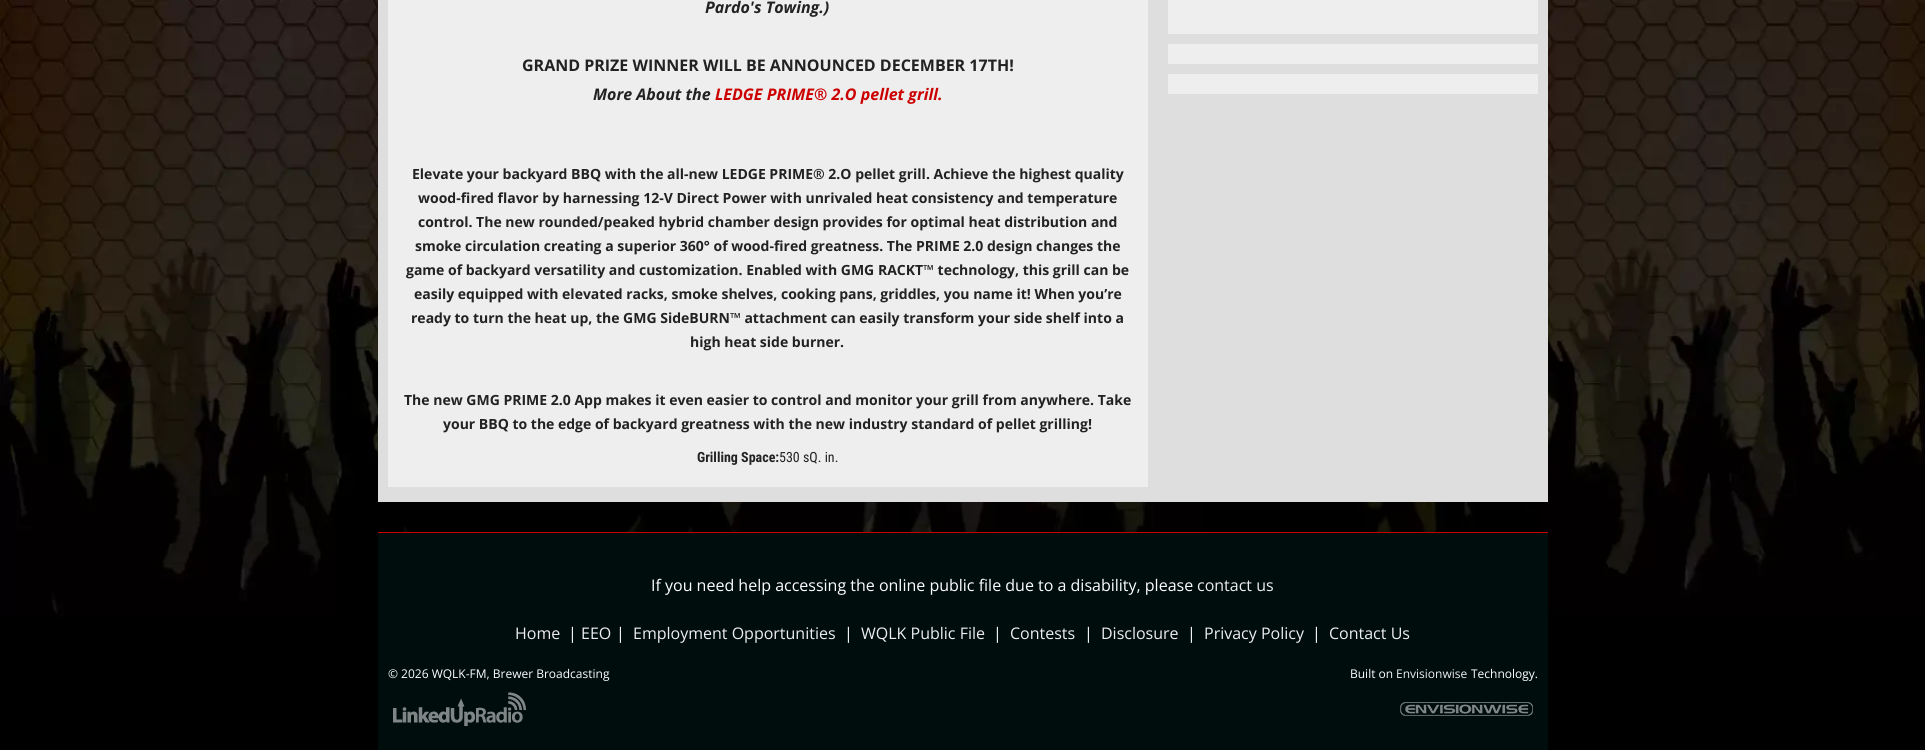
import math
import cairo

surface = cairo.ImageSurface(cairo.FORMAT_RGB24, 1925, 750)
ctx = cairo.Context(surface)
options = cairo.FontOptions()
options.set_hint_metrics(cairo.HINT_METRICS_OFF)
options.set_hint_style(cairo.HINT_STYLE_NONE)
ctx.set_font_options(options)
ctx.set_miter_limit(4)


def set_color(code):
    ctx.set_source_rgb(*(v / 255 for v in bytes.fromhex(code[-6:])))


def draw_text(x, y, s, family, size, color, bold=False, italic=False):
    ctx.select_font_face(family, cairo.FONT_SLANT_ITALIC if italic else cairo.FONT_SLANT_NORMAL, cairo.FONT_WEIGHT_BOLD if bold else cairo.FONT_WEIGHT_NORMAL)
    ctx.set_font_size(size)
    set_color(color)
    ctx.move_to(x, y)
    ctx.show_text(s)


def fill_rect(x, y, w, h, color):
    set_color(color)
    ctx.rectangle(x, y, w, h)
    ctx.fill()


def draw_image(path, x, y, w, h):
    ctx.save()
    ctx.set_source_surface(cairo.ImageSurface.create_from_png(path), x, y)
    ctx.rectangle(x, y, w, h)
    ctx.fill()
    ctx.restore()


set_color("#000000")
ctx.paint()
draw_image("assets/img1.png", 0, 0, 1925, 617)
fill_rect(378, 0, 1170, 502, "#dedede")
fill_rect(388, 0, 760, 487, "#eeeeee")
draw_text(705, 13, "Pardo's Towing.)", "Open Sans", 16, "#222222", bold=True, italic=True)
draw_text(522, 71, "GRAND PRIZE WINNER WILL BE ANNOUNCED DECEMBER 17TH!", "Open Sans", 16, "#222222", bold=True)
draw_text(593, 100, "More About the", "Open Sans", 16, "#222222", bold=True, italic=True)
draw_text(715, 100, "LEDGE PRIME® 2.O pellet grill.", "Open Sans", 16, "#cc0000", bold=True, italic=True)
draw_text(412, 179, "Elevate your backyard BBQ with the all-new LEDGE PRIME® 2.O pellet grill. Achieve the highest quality", "Open Sans", 14, "#222222", bold=True)
draw_text(418, 203, "wood-fired flavor by harnessing 12-V Direct Power with unrivaled heat consistency and temperature", "Open Sans", 14, "#222222", bold=True)
draw_text(418, 227, "control. The new rounded/peaked hybrid chamber design provides for optimal heat distribution and", "Open Sans", 14, "#222222", bold=True)
draw_text(415, 251, "smoke circulation creating a superior 360° of wood-fired greatness. The PRIME 2.0 design changes the", "Open Sans", 14, "#222222", bold=True)
draw_text(406, 275, "game of backyard versatility and customization. Enabled with GMG RACKT™ technology, this grill can be", "Open Sans", 14, "#222222", bold=True)
draw_text(414, 299, "easily equipped with elevated racks, smoke shelves, cooking pans, griddles, you name it! When you’re", "Open Sans", 14, "#222222", bold=True)
draw_text(411, 323, "ready to turn the heat up, the GMG SideBURN™ attachment can easily transform your side shelf into a", "Open Sans", 14, "#222222", bold=True)
draw_text(690, 347, "high heat side burner.", "Open Sans", 14, "#222222", bold=True)
draw_text(404, 405, "The new GMG PRIME 2.0 App makes it even easier to control and monitor your grill from anywhere. Take", "Open Sans", 14, "#222222", bold=True)
draw_text(443, 429, "your BBQ to the edge of backyard greatness with the new industry standard of pellet grilling!", "Open Sans", 14, "#222222", bold=True)
draw_text(697, 462, "Grilling Space:", "Roboto Condensed", 14, "#222222", bold=True)
draw_text(779, 462, "530 sQ. in.", "Roboto Condensed", 14, "#222222")
fill_rect(1168, 0, 370, 34, "#eeeeee")
fill_rect(1168, 44, 370, 20, "#eeeeee")
fill_rect(1168, 74, 370, 20, "#eeeeee")
fill_rect(378, 533, 1170, 217, "#000d0d")
fill_rect(378, 532, 1170, 1, "#cc0000")
draw_text(651, 591, "If you need help accessing the online public file due to a disability, please", "Open Sans", 16, "#ffffff")
draw_text(1197, 591, "contact us", "Open Sans", 16, "#eeeeee")
draw_text(515, 639, "Home", "Open Sans", 16, "#eeeeee")
draw_text(568, 639, "|", "Open Sans", 16, "#ffffff")
draw_text(581, 639, "EEO", "Open Sans", 16, "#eeeeee")
draw_text(616, 639, "|", "Open Sans", 16, "#ffffff")
draw_text(633, 639, "Employment Opportunities", "Open Sans", 16, "#eeeeee")
draw_text(844, 639, "|", "Open Sans", 16, "#ffffff")
draw_text(861, 639, "WQLK Public File", "Open Sans", 16, "#eeeeee")
draw_text(993, 639, "|", "Open Sans", 16, "#ffffff")
draw_text(1010, 639, "Contests", "Open Sans", 16, "#eeeeee")
draw_text(1084, 639, "|", "Open Sans", 16, "#ffffff")
draw_text(1101, 639, "Disclosure", "Open Sans", 16, "#eeeeee")
draw_text(1187, 639, "|", "Open Sans", 16, "#ffffff")
draw_text(1204, 639, "Privacy Policy", "Open Sans", 16, "#eeeeee")
draw_text(1312, 639, "|", "Open Sans", 16, "#ffffff")
draw_text(1329, 639, "Contact Us", "Open Sans", 16, "#eeeeee")
draw_text(388, 678, "© 2026 WQLK-FM, Brewer Broadcasting", "Open Sans", 12, "#ffffff")
draw_image("assets/img2.png", 393, 692, 133, 34)
draw_text(1350, 678, "Built on", "Open Sans", 12, "#ffffff")
draw_text(1396, 678, "Envisionwise", "Open Sans", 12, "#eeeeee")
draw_text(1471, 678, "Technology.", "Open Sans", 12, "#ffffff")
draw_image("assets/img3.png", 1400, 702, 133, 14)
surface.write_to_png("output.png")
